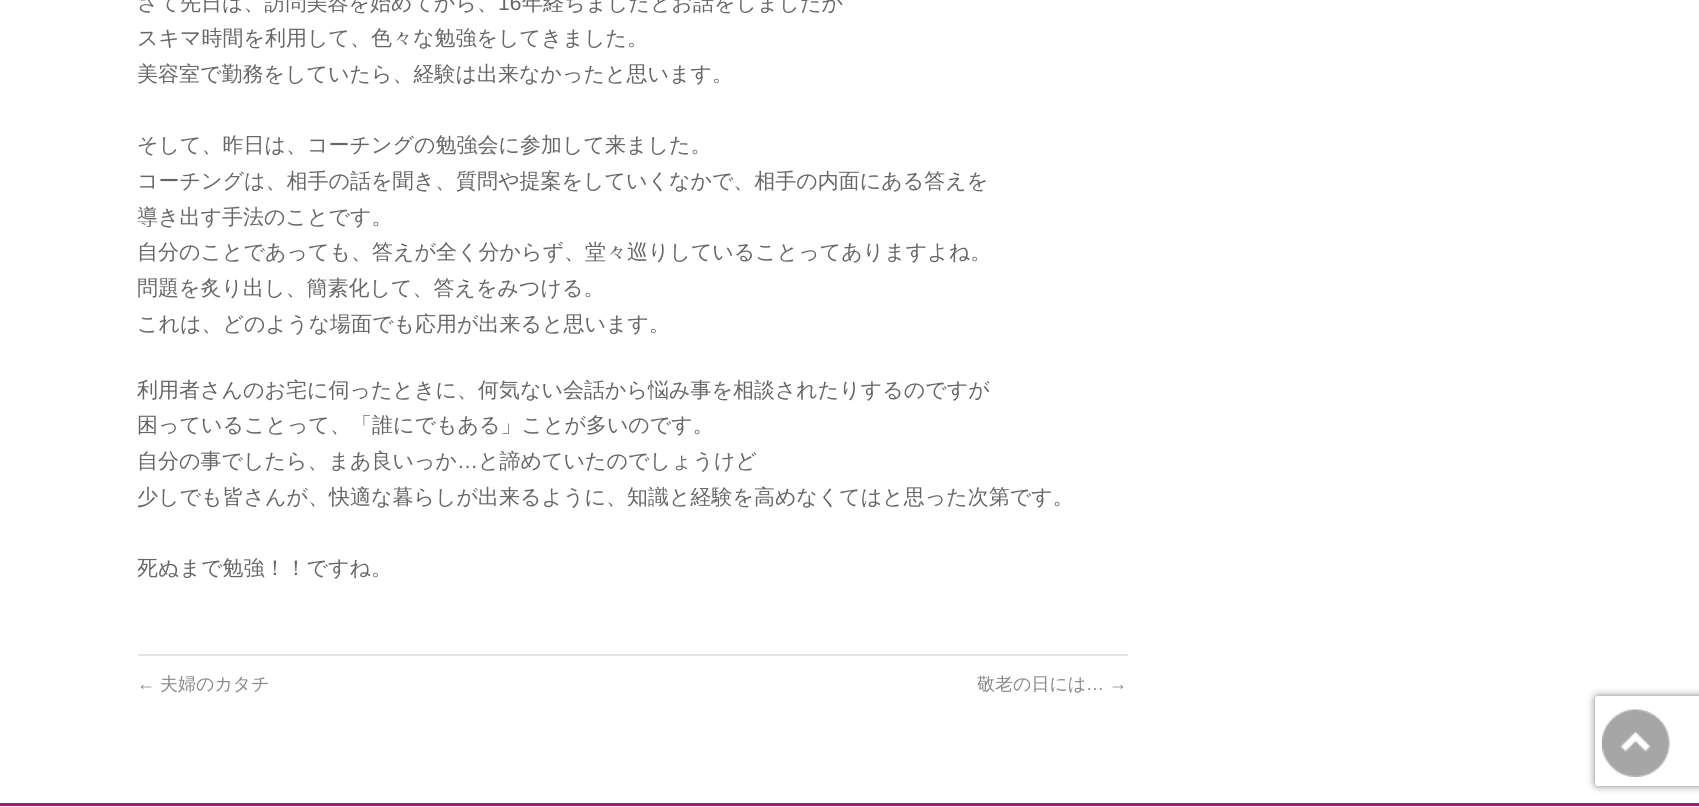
import math
import cairo

surface = cairo.ImageSurface(cairo.FORMAT_RGB24, 1699, 807)
ctx = cairo.Context(surface)
options = cairo.FontOptions()
options.set_hint_metrics(cairo.HINT_METRICS_OFF)
options.set_hint_style(cairo.HINT_STYLE_NONE)
ctx.set_font_options(options)
ctx.set_miter_limit(4)


def set_color(code):
    ctx.set_source_rgb(*(v / 255 for v in bytes.fromhex(code[-6:])))


def draw_text(x, y, s, family, size, color, bold=False, italic=False):
    ctx.select_font_face(family, cairo.FONT_SLANT_ITALIC if italic else cairo.FONT_SLANT_NORMAL, cairo.FONT_WEIGHT_BOLD if bold else cairo.FONT_WEIGHT_NORMAL)
    ctx.set_font_size(size)
    set_color(color)
    ctx.move_to(x, y)
    ctx.show_text(s)


def fill_rect(x, y, w, h, color):
    set_color(color)
    ctx.rectangle(x, y, w, h)
    ctx.fill()


def rounded_rect(x, y, w, h, r):
    ctx.new_sub_path()
    for i, (u, v) in enumerate([(x + w - r, y + h - r), (x + r, y + h - r), (x + r, y + r), (x + w - r, y + r)]):
        ctx.arc(u, v, r, i * math.pi / 2, (i + 1) * math.pi / 2)
    ctx.close_path()


def draw_shadow(x, y, w, h, r, blur, alpha):
    ctx.push_group_with_content(cairo.CONTENT_ALPHA)
    ctx.set_operator(cairo.OPERATOR_SOURCE)
    for i in range(15, -16, -2):
        e = blur * i / 6
        if min(w, h) + 2 * e > 0:
            ctx.set_source_rgba(0, 0, 0, alpha * math.erfc((i - 1) / 8.5) / 2)
            rounded_rect(x - e, y - e, w + 2 * e, h + 2 * e, max(0, min(r + e + blur * .6, min(w, h) / 2 + e)))
            ctx.fill()
    ctx.mask(ctx.pop_group())


def draw_image(path, x, y, w, h):
    ctx.save()
    ctx.set_source_surface(cairo.ImageSurface.create_from_png(path), x, y)
    ctx.rectangle(x, y, w, h)
    ctx.fill()
    ctx.restore()


set_color("#ffffff")
ctx.paint()
draw_text(137, 10, "さて先日は、訪問美容を始めてから、", "WenQuanYi Zen Hei Medium", 21, "#666666")
draw_text(498, 10, "16", "Liberation Sans", 21, "#666666")
draw_text(522, 10, "年経ちましたとお話をしましたが", "WenQuanYi Zen Hei Medium", 21, "#666666")
draw_text(137, 45, "スキマ時間を利用して、色々な勉強をしてきました。", "WenQuanYi Zen Hei Medium", 21, "#666666")
draw_text(137, 81, "美容室で勤務をしていたら、経験は出来なかったと思います。", "WenQuanYi Zen Hei Medium", 21, "#666666")
draw_text(137, 152, "そして、昨日は、コーチングの勉強会に参加して来ました。", "WenQuanYi Zen Hei Medium", 21, "#666666")
draw_text(137, 188, "コーチングは、相手の話を聞き、質問や提案をしていくなかで、相手の内面にある答えを", "WenQuanYi Zen Hei Medium", 21, "#666666")
draw_text(137, 224, "導き出す手法のことです。", "WenQuanYi Zen Hei Medium", 21, "#666666")
draw_text(137, 259, "自分のことであっても、答えが全く分からず、堂々巡りしていることってありますよね。", "WenQuanYi Zen Hei Medium", 21, "#666666")
draw_text(137, 295, "問題を炙り出し、簡素化して、答えをみつける。", "WenQuanYi Zen Hei Medium", 21, "#666666")
draw_text(137, 331, "これは、どのような場面でも応用が出来ると思います。", "WenQuanYi Zen Hei Medium", 21, "#666666")
draw_text(137, 397, "利用者さんのお宅に伺ったときに、何気ない会話から悩み事を相談されたりするのですが", "WenQuanYi Zen Hei Medium", 21, "#666666")
draw_text(137, 432, "困っていることって、「誰にでもある」ことが多いのです。", "WenQuanYi Zen Hei Medium", 21, "#666666")
draw_text(137, 468, "自分の事でしたら、まあ良いっか", "WenQuanYi Zen Hei Medium", 21, "#666666")
draw_text(457, 468, "…", "Liberation Sans", 21, "#666666")
draw_text(478, 468, "と諦めていたのでしょうけど", "WenQuanYi Zen Hei Medium", 21, "#666666")
draw_text(137, 504, "少しでも皆さんが、快適な暮らしが出来るように、知識と経験を高めなくてはと思った次第です。", "WenQuanYi Zen Hei Medium", 21, "#666666")
ctx.save()
ctx.rectangle(138, 0, 990, 617)
ctx.clip()
draw_text(137, 575, "死ぬまで勉強！！ですね。", "WenQuanYi Zen Hei Medium", 21, "#666666")
ctx.restore()
fill_rect(138, 654, 990, 2, "#e5e5e5")
draw_text(137, 690, "←", "Liberation Sans", 18, "#888888")
draw_text(160, 690, "夫婦のカタチ", "WenQuanYi Zen Hei Medium", 18, "#888888")
draw_text(977, 690, "敬老の日には", "WenQuanYi Zen Hei Medium", 18, "#888888")
draw_text(1086, 690, "… →", "Liberation Sans", 18, "#888888")
ctx.save()
ctx.set_fill_rule(cairo.FILL_RULE_EVEN_ODD)
ctx.new_path()
ctx.move_to(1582, 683)
ctx.line_to(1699, 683)
ctx.line_to(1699, 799)
ctx.line_to(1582, 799)
ctx.close_path()
ctx.move_to(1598, 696)
ctx.line_to(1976, 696)
ctx.curve_to(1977.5, 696, 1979, 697.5, 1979, 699)
ctx.line_to(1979, 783)
ctx.curve_to(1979, 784.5, 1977.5, 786, 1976, 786)
ctx.line_to(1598, 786)
ctx.curve_to(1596.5, 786, 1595, 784.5, 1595, 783)
ctx.line_to(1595, 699)
ctx.curve_to(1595, 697.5, 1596.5, 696, 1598, 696)
ctx.close_path()
ctx.clip()
set_color("#808080")
draw_shadow(1595, 696, 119, 90, 3, 4, 1)
ctx.restore()
draw_image("assets/img1.png", 1602, 709, 68, 68)
fill_rect(0, 803, 1699, 3, "#a8196f")
fill_rect(0, 806, 1699, 1, "#e9e9e9")
surface.write_to_png("output.png")
